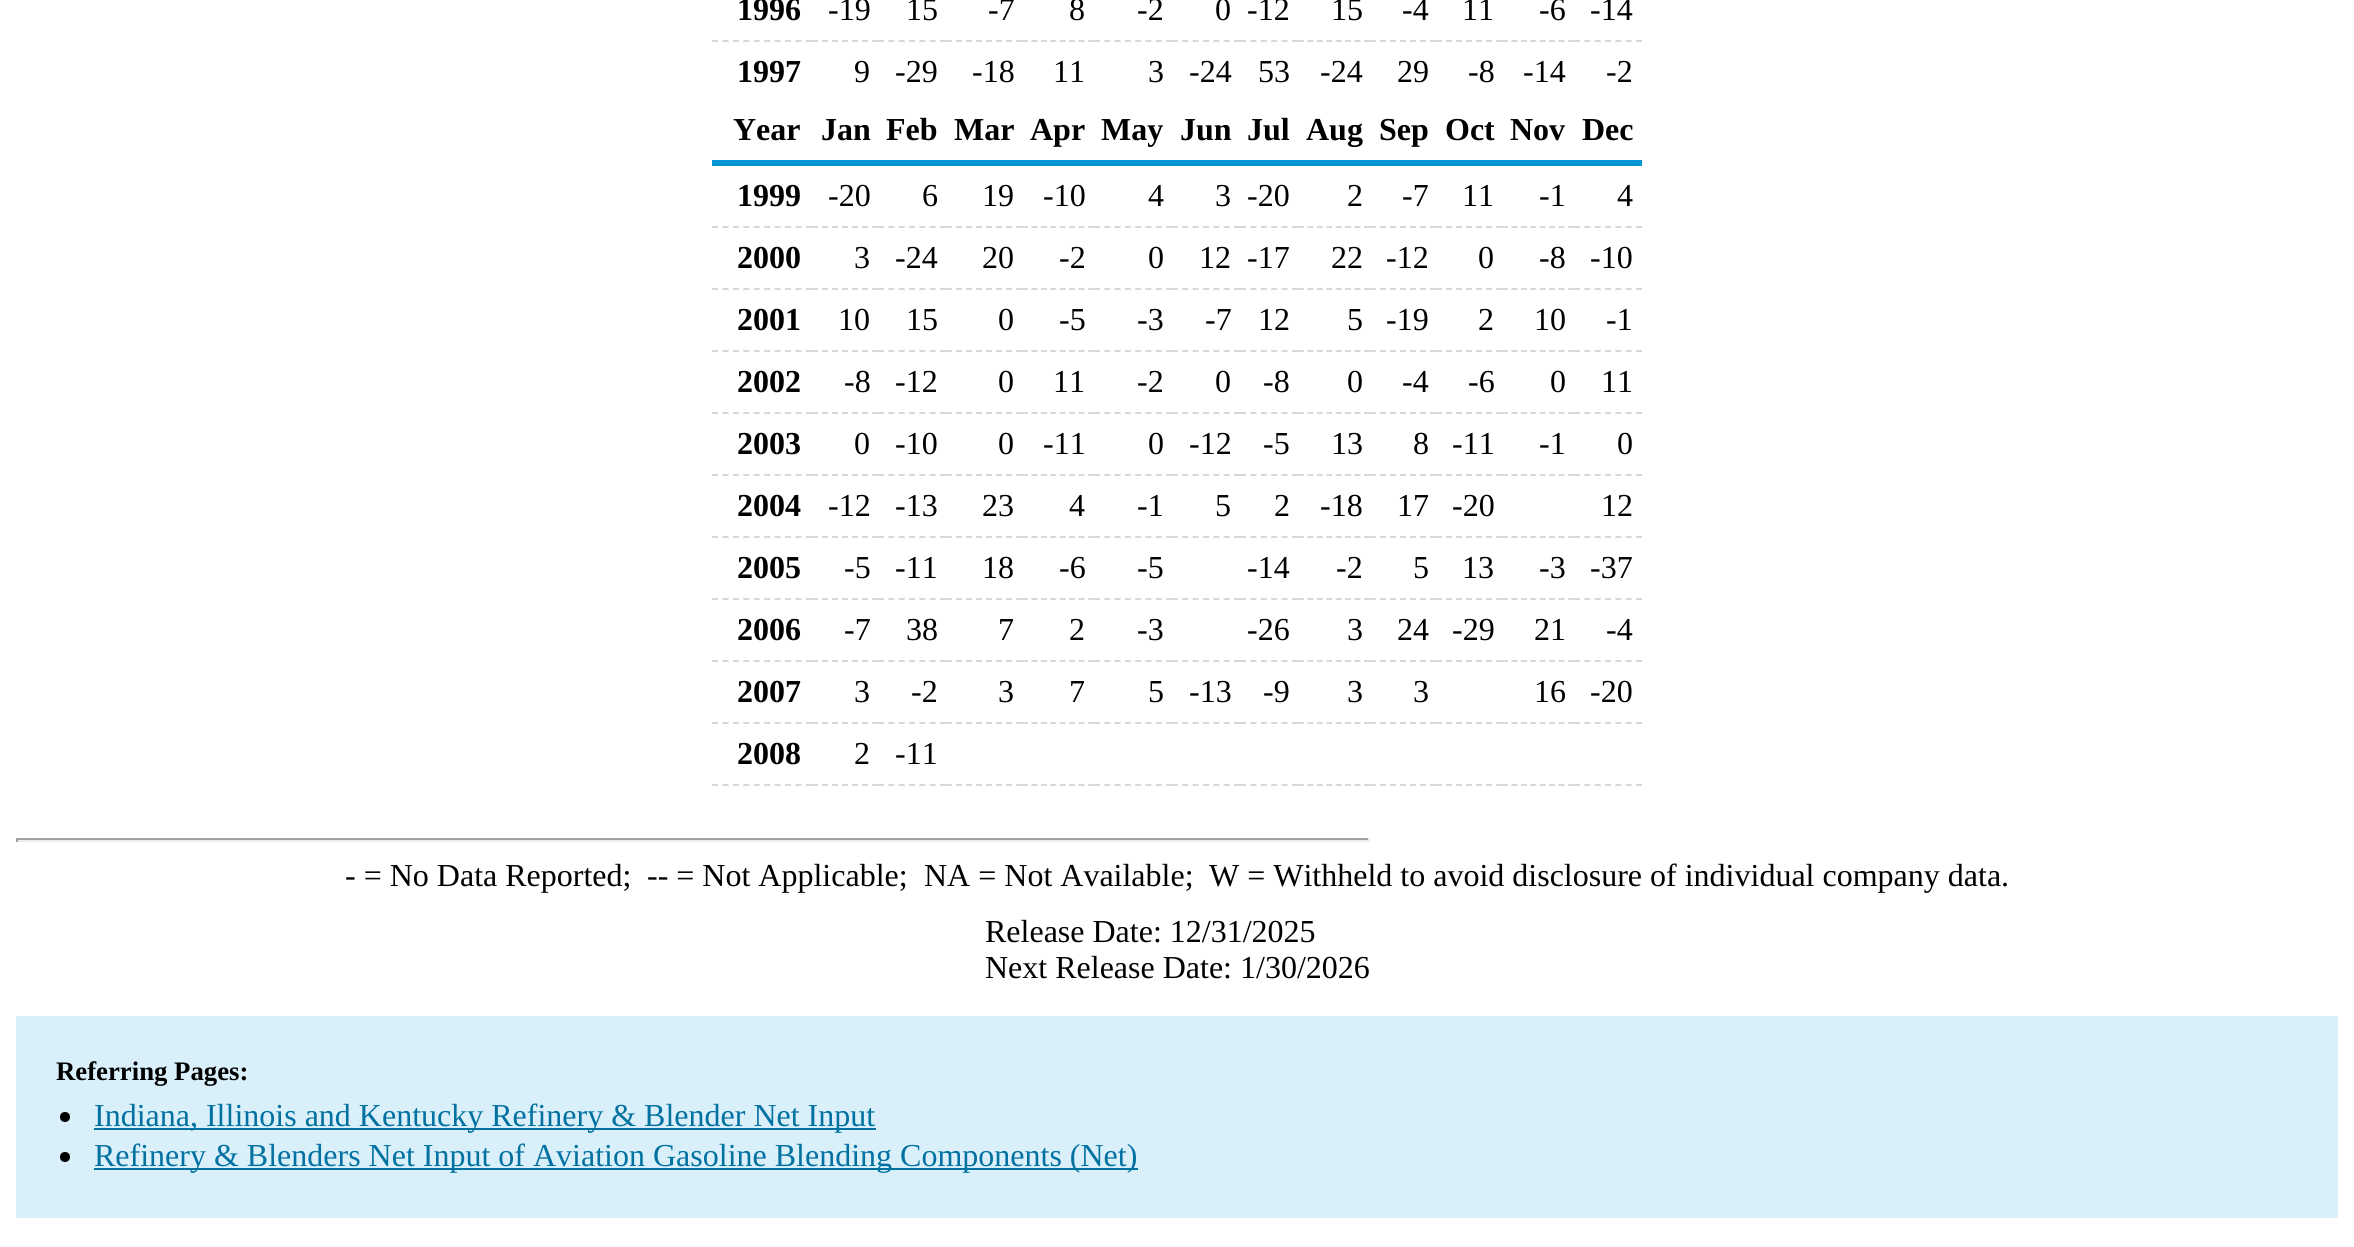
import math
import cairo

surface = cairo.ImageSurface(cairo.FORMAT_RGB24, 2354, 1247)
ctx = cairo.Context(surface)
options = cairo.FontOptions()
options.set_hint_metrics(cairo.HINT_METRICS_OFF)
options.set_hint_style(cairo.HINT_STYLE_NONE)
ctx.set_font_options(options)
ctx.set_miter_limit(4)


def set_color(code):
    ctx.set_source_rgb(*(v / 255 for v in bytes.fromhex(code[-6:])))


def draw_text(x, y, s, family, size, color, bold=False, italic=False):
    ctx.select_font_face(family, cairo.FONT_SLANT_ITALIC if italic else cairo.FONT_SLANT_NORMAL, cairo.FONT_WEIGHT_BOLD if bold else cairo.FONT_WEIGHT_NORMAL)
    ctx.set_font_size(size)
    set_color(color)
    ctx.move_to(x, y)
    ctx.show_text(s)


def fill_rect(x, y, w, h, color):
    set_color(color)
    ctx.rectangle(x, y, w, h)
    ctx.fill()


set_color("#ffffff")
ctx.paint()
ctx.new_path()
ctx.move_to(712, 41)
ctx.line_to(812, 41)
set_color("#d8d8d8")
ctx.set_dash([6, 4.44])
ctx.stroke()
draw_text(737, 20, "1996", "Liberation Serif", 32, "#000000", bold=True)
ctx.new_path()
ctx.move_to(812, 41)
ctx.line_to(878, 41)
set_color("#d8d8d8")
ctx.set_dash([6, 4])
ctx.stroke()
draw_text(828, 20, "-19", "Liberation Serif", 32, "#000000")
ctx.new_path()
ctx.move_to(878, 41)
ctx.line_to(946, 41)
set_color("#d8d8d8")
ctx.set_dash([6, 4.34])
ctx.stroke()
draw_text(906, 20, "15", "Liberation Serif", 32, "#000000")
ctx.new_path()
ctx.move_to(946, 41)
ctx.line_to(1022, 41)
set_color("#d8d8d8")
ctx.set_dash([6, 4])
ctx.stroke()
draw_text(988, 20, "-7", "Liberation Serif", 32, "#000000")
ctx.new_path()
ctx.move_to(1022, 41)
ctx.line_to(1094, 41)
set_color("#d8d8d8")
ctx.set_dash([6, 3.42])
ctx.stroke()
draw_text(1069, 20, "8", "Liberation Serif", 32, "#000000")
ctx.new_path()
ctx.move_to(1094, 41)
ctx.line_to(1172, 41)
set_color("#d8d8d8")
ctx.set_dash([6, 4.28])
ctx.stroke()
draw_text(1137, 20, "-2", "Liberation Serif", 32, "#000000")
ctx.new_path()
ctx.move_to(1172, 41)
ctx.line_to(1240, 41)
set_color("#d8d8d8")
ctx.set_dash([6, 4.34])
ctx.stroke()
draw_text(1215, 20, "0", "Liberation Serif", 32, "#000000")
ctx.new_path()
ctx.move_to(1240, 41)
ctx.line_to(1298, 41)
set_color("#d8d8d8")
ctx.set_dash([6, 4.4])
ctx.stroke()
draw_text(1247, 20, "-12", "Liberation Serif", 32, "#000000")
ctx.new_path()
ctx.move_to(1298, 41)
ctx.line_to(1370, 41)
set_color("#d8d8d8")
ctx.set_dash([6, 3.42])
ctx.stroke()
draw_text(1331, 20, "15", "Liberation Serif", 32, "#000000")
ctx.new_path()
ctx.move_to(1370, 41)
ctx.line_to(1436, 41)
set_color("#d8d8d8")
ctx.set_dash([6, 4])
ctx.stroke()
draw_text(1402, 20, "-4", "Liberation Serif", 32, "#000000")
ctx.new_path()
ctx.move_to(1436, 41)
ctx.line_to(1502, 41)
set_color("#d8d8d8")
ctx.stroke()
draw_text(1462, 20, "11", "Liberation Serif", 32, "#000000")
ctx.new_path()
ctx.move_to(1502, 41)
ctx.line_to(1574, 41)
set_color("#d8d8d8")
ctx.set_dash([6, 3.42])
ctx.stroke()
draw_text(1539, 20, "-6", "Liberation Serif", 32, "#000000")
ctx.new_path()
ctx.move_to(1574, 41)
ctx.line_to(1642, 41)
set_color("#d8d8d8")
ctx.set_dash([6, 4.34])
ctx.stroke()
draw_text(1590, 20, "-14", "Liberation Serif", 32, "#000000")
draw_text(737, 82, "1997", "Liberation Serif", 32, "#000000", bold=True)
draw_text(854, 82, "9", "Liberation Serif", 32, "#000000")
draw_text(895, 82, "-29", "Liberation Serif", 32, "#000000")
draw_text(972, 82, "-18", "Liberation Serif", 32, "#000000")
draw_text(1053, 82, "11", "Liberation Serif", 32, "#000000")
draw_text(1148, 82, "3", "Liberation Serif", 32, "#000000")
draw_text(1189, 82, "-24", "Liberation Serif", 32, "#000000")
draw_text(1258, 82, "53", "Liberation Serif", 32, "#000000")
draw_text(1320, 82, "-24", "Liberation Serif", 32, "#000000")
draw_text(1397, 82, "29", "Liberation Serif", 32, "#000000")
draw_text(1468, 82, "-8", "Liberation Serif", 32, "#000000")
draw_text(1523, 82, "-14", "Liberation Serif", 32, "#000000")
draw_text(1606, 82, "-2", "Liberation Serif", 32, "#000000")
ctx.new_path()
ctx.move_to(712, 227)
ctx.line_to(812, 227)
set_color("#d8d8d8")
ctx.set_dash([6, 4.44])
ctx.stroke()
draw_text(737, 206, "1999", "Liberation Serif", 32, "#000000", bold=True)
ctx.new_path()
ctx.move_to(812, 227)
ctx.line_to(878, 227)
set_color("#d8d8d8")
ctx.set_dash([6, 4])
ctx.stroke()
draw_text(828, 206, "-20", "Liberation Serif", 32, "#000000")
ctx.new_path()
ctx.move_to(878, 227)
ctx.line_to(946, 227)
set_color("#d8d8d8")
ctx.set_dash([6, 4.34])
ctx.stroke()
draw_text(922, 206, "6", "Liberation Serif", 32, "#000000")
ctx.new_path()
ctx.move_to(946, 227)
ctx.line_to(1022, 227)
set_color("#d8d8d8")
ctx.set_dash([6, 4])
ctx.stroke()
draw_text(982, 206, "19", "Liberation Serif", 32, "#000000")
ctx.new_path()
ctx.move_to(1022, 227)
ctx.line_to(1094, 227)
set_color("#d8d8d8")
ctx.set_dash([6, 3.42])
ctx.stroke()
draw_text(1043, 206, "-10", "Liberation Serif", 32, "#000000")
ctx.new_path()
ctx.move_to(1094, 227)
ctx.line_to(1172, 227)
set_color("#d8d8d8")
ctx.set_dash([6, 4.28])
ctx.stroke()
draw_text(1148, 206, "4", "Liberation Serif", 32, "#000000")
ctx.new_path()
ctx.move_to(1172, 227)
ctx.line_to(1240, 227)
set_color("#d8d8d8")
ctx.set_dash([6, 4.34])
ctx.stroke()
draw_text(1215, 206, "3", "Liberation Serif", 32, "#000000")
ctx.new_path()
ctx.move_to(1240, 227)
ctx.line_to(1298, 227)
set_color("#d8d8d8")
ctx.set_dash([6, 4.4])
ctx.stroke()
draw_text(1247, 206, "-20", "Liberation Serif", 32, "#000000")
ctx.new_path()
ctx.move_to(1298, 227)
ctx.line_to(1370, 227)
set_color("#d8d8d8")
ctx.set_dash([6, 3.42])
ctx.stroke()
draw_text(1347, 206, "2", "Liberation Serif", 32, "#000000")
ctx.new_path()
ctx.move_to(1370, 227)
ctx.line_to(1436, 227)
set_color("#d8d8d8")
ctx.set_dash([6, 4])
ctx.stroke()
draw_text(1402, 206, "-7", "Liberation Serif", 32, "#000000")
ctx.new_path()
ctx.move_to(1436, 227)
ctx.line_to(1502, 227)
set_color("#d8d8d8")
ctx.stroke()
draw_text(1462, 206, "11", "Liberation Serif", 32, "#000000")
ctx.new_path()
ctx.move_to(1502, 227)
ctx.line_to(1574, 227)
set_color("#d8d8d8")
ctx.set_dash([6, 3.42])
ctx.stroke()
draw_text(1539, 206, "-1", "Liberation Serif", 32, "#000000")
ctx.new_path()
ctx.move_to(1574, 227)
ctx.line_to(1642, 227)
set_color("#d8d8d8")
ctx.set_dash([6, 4.34])
ctx.stroke()
draw_text(1617, 206, "4", "Liberation Serif", 32, "#000000")
ctx.new_path()
ctx.move_to(712, 289)
ctx.line_to(812, 289)
set_color("#d8d8d8")
ctx.set_dash([6, 4.44])
ctx.stroke()
draw_text(737, 268, "2000", "Liberation Serif", 32, "#000000", bold=True)
ctx.new_path()
ctx.move_to(812, 289)
ctx.line_to(878, 289)
set_color("#d8d8d8")
ctx.set_dash([6, 4])
ctx.stroke()
draw_text(854, 268, "3", "Liberation Serif", 32, "#000000")
ctx.new_path()
ctx.move_to(878, 289)
ctx.line_to(946, 289)
set_color("#d8d8d8")
ctx.set_dash([6, 4.34])
ctx.stroke()
draw_text(895, 268, "-24", "Liberation Serif", 32, "#000000")
ctx.new_path()
ctx.move_to(946, 289)
ctx.line_to(1022, 289)
set_color("#d8d8d8")
ctx.set_dash([6, 4])
ctx.stroke()
draw_text(982, 268, "20", "Liberation Serif", 32, "#000000")
ctx.new_path()
ctx.move_to(1022, 289)
ctx.line_to(1094, 289)
set_color("#d8d8d8")
ctx.set_dash([6, 3.42])
ctx.stroke()
draw_text(1059, 268, "-2", "Liberation Serif", 32, "#000000")
ctx.new_path()
ctx.move_to(1094, 289)
ctx.line_to(1172, 289)
set_color("#d8d8d8")
ctx.set_dash([6, 4.28])
ctx.stroke()
draw_text(1148, 268, "0", "Liberation Serif", 32, "#000000")
ctx.new_path()
ctx.move_to(1172, 289)
ctx.line_to(1240, 289)
set_color("#d8d8d8")
ctx.set_dash([6, 4.34])
ctx.stroke()
draw_text(1199, 268, "12", "Liberation Serif", 32, "#000000")
ctx.new_path()
ctx.move_to(1240, 289)
ctx.line_to(1298, 289)
set_color("#d8d8d8")
ctx.set_dash([6, 4.4])
ctx.stroke()
draw_text(1247, 268, "-17", "Liberation Serif", 32, "#000000")
ctx.new_path()
ctx.move_to(1298, 289)
ctx.line_to(1370, 289)
set_color("#d8d8d8")
ctx.set_dash([6, 3.42])
ctx.stroke()
draw_text(1331, 268, "22", "Liberation Serif", 32, "#000000")
ctx.new_path()
ctx.move_to(1370, 289)
ctx.line_to(1436, 289)
set_color("#d8d8d8")
ctx.set_dash([6, 4])
ctx.stroke()
draw_text(1386, 268, "-12", "Liberation Serif", 32, "#000000")
ctx.new_path()
ctx.move_to(1436, 289)
ctx.line_to(1502, 289)
set_color("#d8d8d8")
ctx.stroke()
draw_text(1478, 268, "0", "Liberation Serif", 32, "#000000")
ctx.new_path()
ctx.move_to(1502, 289)
ctx.line_to(1574, 289)
set_color("#d8d8d8")
ctx.set_dash([6, 3.42])
ctx.stroke()
draw_text(1539, 268, "-8", "Liberation Serif", 32, "#000000")
ctx.new_path()
ctx.move_to(1574, 289)
ctx.line_to(1642, 289)
set_color("#d8d8d8")
ctx.set_dash([6, 4.34])
ctx.stroke()
draw_text(1590, 268, "-10", "Liberation Serif", 32, "#000000")
ctx.new_path()
ctx.move_to(712, 351)
ctx.line_to(812, 351)
set_color("#d8d8d8")
ctx.set_dash([6, 4.44])
ctx.stroke()
draw_text(737, 330, "2001", "Liberation Serif", 32, "#000000", bold=True)
ctx.new_path()
ctx.move_to(812, 351)
ctx.line_to(878, 351)
set_color("#d8d8d8")
ctx.set_dash([6, 4])
ctx.stroke()
draw_text(838, 330, "10", "Liberation Serif", 32, "#000000")
ctx.new_path()
ctx.move_to(878, 351)
ctx.line_to(946, 351)
set_color("#d8d8d8")
ctx.set_dash([6, 4.34])
ctx.stroke()
draw_text(906, 330, "15", "Liberation Serif", 32, "#000000")
ctx.new_path()
ctx.move_to(946, 351)
ctx.line_to(1022, 351)
set_color("#d8d8d8")
ctx.set_dash([6, 4])
ctx.stroke()
draw_text(998, 330, "0", "Liberation Serif", 32, "#000000")
ctx.new_path()
ctx.move_to(1022, 351)
ctx.line_to(1094, 351)
set_color("#d8d8d8")
ctx.set_dash([6, 3.42])
ctx.stroke()
draw_text(1059, 330, "-5", "Liberation Serif", 32, "#000000")
ctx.new_path()
ctx.move_to(1094, 351)
ctx.line_to(1172, 351)
set_color("#d8d8d8")
ctx.set_dash([6, 4.28])
ctx.stroke()
draw_text(1137, 330, "-3", "Liberation Serif", 32, "#000000")
ctx.new_path()
ctx.move_to(1172, 351)
ctx.line_to(1240, 351)
set_color("#d8d8d8")
ctx.set_dash([6, 4.34])
ctx.stroke()
draw_text(1205, 330, "-7", "Liberation Serif", 32, "#000000")
ctx.new_path()
ctx.move_to(1240, 351)
ctx.line_to(1298, 351)
set_color("#d8d8d8")
ctx.set_dash([6, 4.4])
ctx.stroke()
draw_text(1258, 330, "12", "Liberation Serif", 32, "#000000")
ctx.new_path()
ctx.move_to(1298, 351)
ctx.line_to(1370, 351)
set_color("#d8d8d8")
ctx.set_dash([6, 3.42])
ctx.stroke()
draw_text(1347, 330, "5", "Liberation Serif", 32, "#000000")
ctx.new_path()
ctx.move_to(1370, 351)
ctx.line_to(1436, 351)
set_color("#d8d8d8")
ctx.set_dash([6, 4])
ctx.stroke()
draw_text(1386, 330, "-19", "Liberation Serif", 32, "#000000")
ctx.new_path()
ctx.move_to(1436, 351)
ctx.line_to(1502, 351)
set_color("#d8d8d8")
ctx.stroke()
draw_text(1478, 330, "2", "Liberation Serif", 32, "#000000")
ctx.new_path()
ctx.move_to(1502, 351)
ctx.line_to(1574, 351)
set_color("#d8d8d8")
ctx.set_dash([6, 3.42])
ctx.stroke()
draw_text(1534, 330, "10", "Liberation Serif", 32, "#000000")
ctx.new_path()
ctx.move_to(1574, 351)
ctx.line_to(1642, 351)
set_color("#d8d8d8")
ctx.set_dash([6, 4.34])
ctx.stroke()
draw_text(1606, 330, "-1", "Liberation Serif", 32, "#000000")
ctx.new_path()
ctx.move_to(712, 413)
ctx.line_to(812, 413)
set_color("#d8d8d8")
ctx.set_dash([6, 4.44])
ctx.stroke()
draw_text(737, 392, "2002", "Liberation Serif", 32, "#000000", bold=True)
ctx.new_path()
ctx.move_to(812, 413)
ctx.line_to(878, 413)
set_color("#d8d8d8")
ctx.set_dash([6, 4])
ctx.stroke()
draw_text(844, 392, "-8", "Liberation Serif", 32, "#000000")
ctx.new_path()
ctx.move_to(878, 413)
ctx.line_to(946, 413)
set_color("#d8d8d8")
ctx.set_dash([6, 4.34])
ctx.stroke()
draw_text(895, 392, "-12", "Liberation Serif", 32, "#000000")
ctx.new_path()
ctx.move_to(946, 413)
ctx.line_to(1022, 413)
set_color("#d8d8d8")
ctx.set_dash([6, 4])
ctx.stroke()
draw_text(998, 392, "0", "Liberation Serif", 32, "#000000")
ctx.new_path()
ctx.move_to(1022, 413)
ctx.line_to(1094, 413)
set_color("#d8d8d8")
ctx.set_dash([6, 3.42])
ctx.stroke()
draw_text(1053, 392, "11", "Liberation Serif", 32, "#000000")
ctx.new_path()
ctx.move_to(1094, 413)
ctx.line_to(1172, 413)
set_color("#d8d8d8")
ctx.set_dash([6, 4.28])
ctx.stroke()
draw_text(1137, 392, "-2", "Liberation Serif", 32, "#000000")
ctx.new_path()
ctx.move_to(1172, 413)
ctx.line_to(1240, 413)
set_color("#d8d8d8")
ctx.set_dash([6, 4.34])
ctx.stroke()
draw_text(1215, 392, "0", "Liberation Serif", 32, "#000000")
ctx.new_path()
ctx.move_to(1240, 413)
ctx.line_to(1298, 413)
set_color("#d8d8d8")
ctx.set_dash([6, 4.4])
ctx.stroke()
draw_text(1263, 392, "-8", "Liberation Serif", 32, "#000000")
ctx.new_path()
ctx.move_to(1298, 413)
ctx.line_to(1370, 413)
set_color("#d8d8d8")
ctx.set_dash([6, 3.42])
ctx.stroke()
draw_text(1347, 392, "0", "Liberation Serif", 32, "#000000")
ctx.new_path()
ctx.move_to(1370, 413)
ctx.line_to(1436, 413)
set_color("#d8d8d8")
ctx.set_dash([6, 4])
ctx.stroke()
draw_text(1402, 392, "-4", "Liberation Serif", 32, "#000000")
ctx.new_path()
ctx.move_to(1436, 413)
ctx.line_to(1502, 413)
set_color("#d8d8d8")
ctx.stroke()
draw_text(1468, 392, "-6", "Liberation Serif", 32, "#000000")
ctx.new_path()
ctx.move_to(1502, 413)
ctx.line_to(1574, 413)
set_color("#d8d8d8")
ctx.set_dash([6, 3.42])
ctx.stroke()
draw_text(1550, 392, "0", "Liberation Serif", 32, "#000000")
ctx.new_path()
ctx.move_to(1574, 413)
ctx.line_to(1642, 413)
set_color("#d8d8d8")
ctx.set_dash([6, 4.34])
ctx.stroke()
draw_text(1601, 392, "11", "Liberation Serif", 32, "#000000")
ctx.new_path()
ctx.move_to(712, 475)
ctx.line_to(812, 475)
set_color("#d8d8d8")
ctx.set_dash([6, 4.44])
ctx.stroke()
draw_text(737, 454, "2003", "Liberation Serif", 32, "#000000", bold=True)
ctx.new_path()
ctx.move_to(812, 475)
ctx.line_to(878, 475)
set_color("#d8d8d8")
ctx.set_dash([6, 4])
ctx.stroke()
draw_text(854, 454, "0", "Liberation Serif", 32, "#000000")
ctx.new_path()
ctx.move_to(878, 475)
ctx.line_to(946, 475)
set_color("#d8d8d8")
ctx.set_dash([6, 4.34])
ctx.stroke()
draw_text(895, 454, "-10", "Liberation Serif", 32, "#000000")
ctx.new_path()
ctx.move_to(946, 475)
ctx.line_to(1022, 475)
set_color("#d8d8d8")
ctx.set_dash([6, 4])
ctx.stroke()
draw_text(998, 454, "0", "Liberation Serif", 32, "#000000")
ctx.new_path()
ctx.move_to(1022, 475)
ctx.line_to(1094, 475)
set_color("#d8d8d8")
ctx.set_dash([6, 3.42])
ctx.stroke()
draw_text(1043, 454, "-11", "Liberation Serif", 32, "#000000")
ctx.new_path()
ctx.move_to(1094, 475)
ctx.line_to(1172, 475)
set_color("#d8d8d8")
ctx.set_dash([6, 4.28])
ctx.stroke()
draw_text(1148, 454, "0", "Liberation Serif", 32, "#000000")
ctx.new_path()
ctx.move_to(1172, 475)
ctx.line_to(1240, 475)
set_color("#d8d8d8")
ctx.set_dash([6, 4.34])
ctx.stroke()
draw_text(1189, 454, "-12", "Liberation Serif", 32, "#000000")
ctx.new_path()
ctx.move_to(1240, 475)
ctx.line_to(1298, 475)
set_color("#d8d8d8")
ctx.set_dash([6, 4.4])
ctx.stroke()
draw_text(1263, 454, "-5", "Liberation Serif", 32, "#000000")
ctx.new_path()
ctx.move_to(1298, 475)
ctx.line_to(1370, 475)
set_color("#d8d8d8")
ctx.set_dash([6, 3.42])
ctx.stroke()
draw_text(1331, 454, "13", "Liberation Serif", 32, "#000000")
ctx.new_path()
ctx.move_to(1370, 475)
ctx.line_to(1436, 475)
set_color("#d8d8d8")
ctx.set_dash([6, 4])
ctx.stroke()
draw_text(1413, 454, "8", "Liberation Serif", 32, "#000000")
ctx.new_path()
ctx.move_to(1436, 475)
ctx.line_to(1502, 475)
set_color("#d8d8d8")
ctx.stroke()
draw_text(1452, 454, "-11", "Liberation Serif", 32, "#000000")
ctx.new_path()
ctx.move_to(1502, 475)
ctx.line_to(1574, 475)
set_color("#d8d8d8")
ctx.set_dash([6, 3.42])
ctx.stroke()
draw_text(1539, 454, "-1", "Liberation Serif", 32, "#000000")
ctx.new_path()
ctx.move_to(1574, 475)
ctx.line_to(1642, 475)
set_color("#d8d8d8")
ctx.set_dash([6, 4.34])
ctx.stroke()
draw_text(1617, 454, "0", "Liberation Serif", 32, "#000000")
ctx.new_path()
ctx.move_to(712, 537)
ctx.line_to(812, 537)
set_color("#d8d8d8")
ctx.set_dash([6, 4.44])
ctx.stroke()
draw_text(737, 516, "2004", "Liberation Serif", 32, "#000000", bold=True)
ctx.new_path()
ctx.move_to(812, 537)
ctx.line_to(878, 537)
set_color("#d8d8d8")
ctx.set_dash([6, 4])
ctx.stroke()
draw_text(828, 516, "-12", "Liberation Serif", 32, "#000000")
ctx.new_path()
ctx.move_to(878, 537)
ctx.line_to(946, 537)
set_color("#d8d8d8")
ctx.set_dash([6, 4.34])
ctx.stroke()
draw_text(895, 516, "-13", "Liberation Serif", 32, "#000000")
ctx.new_path()
ctx.move_to(946, 537)
ctx.line_to(1022, 537)
set_color("#d8d8d8")
ctx.set_dash([6, 4])
ctx.stroke()
draw_text(982, 516, "23", "Liberation Serif", 32, "#000000")
ctx.new_path()
ctx.move_to(1022, 537)
ctx.line_to(1094, 537)
set_color("#d8d8d8")
ctx.set_dash([6, 3.42])
ctx.stroke()
draw_text(1069, 516, "4", "Liberation Serif", 32, "#000000")
ctx.new_path()
ctx.move_to(1094, 537)
ctx.line_to(1172, 537)
set_color("#d8d8d8")
ctx.set_dash([6, 4.28])
ctx.stroke()
draw_text(1137, 516, "-1", "Liberation Serif", 32, "#000000")
ctx.new_path()
ctx.move_to(1172, 537)
ctx.line_to(1240, 537)
set_color("#d8d8d8")
ctx.set_dash([6, 4.34])
ctx.stroke()
draw_text(1215, 516, "5", "Liberation Serif", 32, "#000000")
ctx.new_path()
ctx.move_to(1240, 537)
ctx.line_to(1298, 537)
set_color("#d8d8d8")
ctx.set_dash([6, 4.4])
ctx.stroke()
draw_text(1274, 516, "2", "Liberation Serif", 32, "#000000")
ctx.new_path()
ctx.move_to(1298, 537)
ctx.line_to(1370, 537)
set_color("#d8d8d8")
ctx.set_dash([6, 3.42])
ctx.stroke()
draw_text(1320, 516, "-18", "Liberation Serif", 32, "#000000")
ctx.new_path()
ctx.move_to(1370, 537)
ctx.line_to(1436, 537)
set_color("#d8d8d8")
ctx.set_dash([6, 4])
ctx.stroke()
draw_text(1397, 516, "17", "Liberation Serif", 32, "#000000")
ctx.new_path()
ctx.move_to(1436, 537)
ctx.line_to(1502, 537)
set_color("#d8d8d8")
ctx.stroke()
draw_text(1452, 516, "-20", "Liberation Serif", 32, "#000000")
ctx.new_path()
ctx.move_to(1574, 537)
ctx.line_to(1642, 537)
set_color("#d8d8d8")
ctx.set_dash([6, 4.34])
ctx.stroke()
draw_text(1601, 516, "12", "Liberation Serif", 32, "#000000")
ctx.new_path()
ctx.move_to(1502, 537)
ctx.line_to(1574, 537)
set_color("#d8d8d8")
ctx.set_dash([6, 3.42])
ctx.stroke()
ctx.new_path()
ctx.move_to(712, 599)
ctx.line_to(812, 599)
ctx.set_dash([6, 4.44])
ctx.stroke()
draw_text(737, 578, "2005", "Liberation Serif", 32, "#000000", bold=True)
ctx.new_path()
ctx.move_to(812, 599)
ctx.line_to(878, 599)
set_color("#d8d8d8")
ctx.set_dash([6, 4])
ctx.stroke()
draw_text(844, 578, "-5", "Liberation Serif", 32, "#000000")
ctx.new_path()
ctx.move_to(878, 599)
ctx.line_to(946, 599)
set_color("#d8d8d8")
ctx.set_dash([6, 4.34])
ctx.stroke()
draw_text(895, 578, "-11", "Liberation Serif", 32, "#000000")
ctx.new_path()
ctx.move_to(946, 599)
ctx.line_to(1022, 599)
set_color("#d8d8d8")
ctx.set_dash([6, 4])
ctx.stroke()
draw_text(982, 578, "18", "Liberation Serif", 32, "#000000")
ctx.new_path()
ctx.move_to(1022, 599)
ctx.line_to(1094, 599)
set_color("#d8d8d8")
ctx.set_dash([6, 3.42])
ctx.stroke()
draw_text(1059, 578, "-6", "Liberation Serif", 32, "#000000")
ctx.new_path()
ctx.move_to(1094, 599)
ctx.line_to(1172, 599)
set_color("#d8d8d8")
ctx.set_dash([6, 4.28])
ctx.stroke()
draw_text(1137, 578, "-5", "Liberation Serif", 32, "#000000")
ctx.new_path()
ctx.move_to(1240, 599)
ctx.line_to(1298, 599)
set_color("#d8d8d8")
ctx.set_dash([6, 4.4])
ctx.stroke()
draw_text(1247, 578, "-14", "Liberation Serif", 32, "#000000")
ctx.new_path()
ctx.move_to(1298, 599)
ctx.line_to(1370, 599)
set_color("#d8d8d8")
ctx.set_dash([6, 3.42])
ctx.stroke()
draw_text(1336, 578, "-2", "Liberation Serif", 32, "#000000")
ctx.new_path()
ctx.move_to(1370, 599)
ctx.line_to(1436, 599)
set_color("#d8d8d8")
ctx.set_dash([6, 4])
ctx.stroke()
draw_text(1413, 578, "5", "Liberation Serif", 32, "#000000")
ctx.new_path()
ctx.move_to(1436, 599)
ctx.line_to(1502, 599)
set_color("#d8d8d8")
ctx.stroke()
draw_text(1462, 578, "13", "Liberation Serif", 32, "#000000")
ctx.new_path()
ctx.move_to(1502, 599)
ctx.line_to(1574, 599)
set_color("#d8d8d8")
ctx.set_dash([6, 3.42])
ctx.stroke()
draw_text(1539, 578, "-3", "Liberation Serif", 32, "#000000")
ctx.new_path()
ctx.move_to(1574, 599)
ctx.line_to(1642, 599)
set_color("#d8d8d8")
ctx.set_dash([6, 4.34])
ctx.stroke()
draw_text(1590, 578, "-37", "Liberation Serif", 32, "#000000")
ctx.new_path()
ctx.move_to(1172, 599)
ctx.line_to(1240, 599)
set_color("#d8d8d8")
ctx.stroke()
ctx.new_path()
ctx.move_to(712, 661)
ctx.line_to(812, 661)
ctx.set_dash([6, 4.44])
ctx.stroke()
draw_text(737, 640, "2006", "Liberation Serif", 32, "#000000", bold=True)
ctx.new_path()
ctx.move_to(812, 661)
ctx.line_to(878, 661)
set_color("#d8d8d8")
ctx.set_dash([6, 4])
ctx.stroke()
draw_text(844, 640, "-7", "Liberation Serif", 32, "#000000")
ctx.new_path()
ctx.move_to(878, 661)
ctx.line_to(946, 661)
set_color("#d8d8d8")
ctx.set_dash([6, 4.34])
ctx.stroke()
draw_text(906, 640, "38", "Liberation Serif", 32, "#000000")
ctx.new_path()
ctx.move_to(946, 661)
ctx.line_to(1022, 661)
set_color("#d8d8d8")
ctx.set_dash([6, 4])
ctx.stroke()
draw_text(998, 640, "7", "Liberation Serif", 32, "#000000")
ctx.new_path()
ctx.move_to(1022, 661)
ctx.line_to(1094, 661)
set_color("#d8d8d8")
ctx.set_dash([6, 3.42])
ctx.stroke()
draw_text(1069, 640, "2", "Liberation Serif", 32, "#000000")
ctx.new_path()
ctx.move_to(1094, 661)
ctx.line_to(1172, 661)
set_color("#d8d8d8")
ctx.set_dash([6, 4.28])
ctx.stroke()
draw_text(1137, 640, "-3", "Liberation Serif", 32, "#000000")
ctx.new_path()
ctx.move_to(1240, 661)
ctx.line_to(1298, 661)
set_color("#d8d8d8")
ctx.set_dash([6, 4.4])
ctx.stroke()
draw_text(1247, 640, "-26", "Liberation Serif", 32, "#000000")
ctx.new_path()
ctx.move_to(1298, 661)
ctx.line_to(1370, 661)
set_color("#d8d8d8")
ctx.set_dash([6, 3.42])
ctx.stroke()
draw_text(1347, 640, "3", "Liberation Serif", 32, "#000000")
ctx.new_path()
ctx.move_to(1370, 661)
ctx.line_to(1436, 661)
set_color("#d8d8d8")
ctx.set_dash([6, 4])
ctx.stroke()
draw_text(1397, 640, "24", "Liberation Serif", 32, "#000000")
ctx.new_path()
ctx.move_to(1436, 661)
ctx.line_to(1502, 661)
set_color("#d8d8d8")
ctx.stroke()
draw_text(1452, 640, "-29", "Liberation Serif", 32, "#000000")
ctx.new_path()
ctx.move_to(1502, 661)
ctx.line_to(1574, 661)
set_color("#d8d8d8")
ctx.set_dash([6, 3.42])
ctx.stroke()
draw_text(1534, 640, "21", "Liberation Serif", 32, "#000000")
ctx.new_path()
ctx.move_to(1574, 661)
ctx.line_to(1642, 661)
set_color("#d8d8d8")
ctx.set_dash([6, 4.34])
ctx.stroke()
draw_text(1606, 640, "-4", "Liberation Serif", 32, "#000000")
ctx.new_path()
ctx.move_to(1172, 661)
ctx.line_to(1240, 661)
set_color("#d8d8d8")
ctx.stroke()
ctx.new_path()
ctx.move_to(712, 723)
ctx.line_to(812, 723)
ctx.set_dash([6, 4.44])
ctx.stroke()
draw_text(737, 702, "2007", "Liberation Serif", 32, "#000000", bold=True)
ctx.new_path()
ctx.move_to(812, 723)
ctx.line_to(878, 723)
set_color("#d8d8d8")
ctx.set_dash([6, 4])
ctx.stroke()
draw_text(854, 702, "3", "Liberation Serif", 32, "#000000")
ctx.new_path()
ctx.move_to(878, 723)
ctx.line_to(946, 723)
set_color("#d8d8d8")
ctx.set_dash([6, 4.34])
ctx.stroke()
draw_text(911, 702, "-2", "Liberation Serif", 32, "#000000")
ctx.new_path()
ctx.move_to(946, 723)
ctx.line_to(1022, 723)
set_color("#d8d8d8")
ctx.set_dash([6, 4])
ctx.stroke()
draw_text(998, 702, "3", "Liberation Serif", 32, "#000000")
ctx.new_path()
ctx.move_to(1022, 723)
ctx.line_to(1094, 723)
set_color("#d8d8d8")
ctx.set_dash([6, 3.42])
ctx.stroke()
draw_text(1069, 702, "7", "Liberation Serif", 32, "#000000")
ctx.new_path()
ctx.move_to(1094, 723)
ctx.line_to(1172, 723)
set_color("#d8d8d8")
ctx.set_dash([6, 4.28])
ctx.stroke()
draw_text(1148, 702, "5", "Liberation Serif", 32, "#000000")
ctx.new_path()
ctx.move_to(1172, 723)
ctx.line_to(1240, 723)
set_color("#d8d8d8")
ctx.set_dash([6, 4.34])
ctx.stroke()
draw_text(1189, 702, "-13", "Liberation Serif", 32, "#000000")
ctx.new_path()
ctx.move_to(1240, 723)
ctx.line_to(1298, 723)
set_color("#d8d8d8")
ctx.set_dash([6, 4.4])
ctx.stroke()
draw_text(1263, 702, "-9", "Liberation Serif", 32, "#000000")
ctx.new_path()
ctx.move_to(1298, 723)
ctx.line_to(1370, 723)
set_color("#d8d8d8")
ctx.set_dash([6, 3.42])
ctx.stroke()
draw_text(1347, 702, "3", "Liberation Serif", 32, "#000000")
ctx.new_path()
ctx.move_to(1370, 723)
ctx.line_to(1436, 723)
set_color("#d8d8d8")
ctx.set_dash([6, 4])
ctx.stroke()
draw_text(1413, 702, "3", "Liberation Serif", 32, "#000000")
ctx.new_path()
ctx.move_to(1502, 723)
ctx.line_to(1574, 723)
set_color("#d8d8d8")
ctx.set_dash([6, 3.42])
ctx.stroke()
draw_text(1534, 702, "16", "Liberation Serif", 32, "#000000")
ctx.new_path()
ctx.move_to(1574, 723)
ctx.line_to(1642, 723)
set_color("#d8d8d8")
ctx.set_dash([6, 4.34])
ctx.stroke()
draw_text(1590, 702, "-20", "Liberation Serif", 32, "#000000")
ctx.new_path()
ctx.move_to(1436, 723)
ctx.line_to(1502, 723)
set_color("#d8d8d8")
ctx.set_dash([6, 4])
ctx.stroke()
ctx.new_path()
ctx.move_to(712, 785)
ctx.line_to(812, 785)
ctx.set_dash([6, 4.44])
ctx.stroke()
draw_text(737, 764, "2008", "Liberation Serif", 32, "#000000", bold=True)
ctx.new_path()
ctx.move_to(812, 785)
ctx.line_to(878, 785)
set_color("#d8d8d8")
ctx.set_dash([6, 4])
ctx.stroke()
draw_text(854, 764, "2", "Liberation Serif", 32, "#000000")
ctx.new_path()
ctx.move_to(878, 785)
ctx.line_to(946, 785)
set_color("#d8d8d8")
ctx.set_dash([6, 4.34])
ctx.stroke()
draw_text(895, 764, "-11", "Liberation Serif", 32, "#000000")
ctx.new_path()
ctx.move_to(946, 785)
ctx.line_to(1022, 785)
set_color("#d8d8d8")
ctx.set_dash([6, 4])
ctx.stroke()
ctx.new_path()
ctx.move_to(1022, 785)
ctx.line_to(1094, 785)
ctx.set_dash([6, 3.42])
ctx.stroke()
ctx.new_path()
ctx.move_to(1094, 785)
ctx.line_to(1172, 785)
ctx.set_dash([6, 4.28])
ctx.stroke()
ctx.new_path()
ctx.move_to(1172, 785)
ctx.line_to(1240, 785)
ctx.set_dash([6, 4.34])
ctx.stroke()
ctx.new_path()
ctx.move_to(1240, 785)
ctx.line_to(1298, 785)
ctx.set_dash([6, 4.4])
ctx.stroke()
ctx.new_path()
ctx.move_to(1298, 785)
ctx.line_to(1370, 785)
ctx.set_dash([6, 3.42])
ctx.stroke()
ctx.new_path()
ctx.move_to(1370, 785)
ctx.line_to(1436, 785)
ctx.set_dash([6, 4])
ctx.stroke()
ctx.new_path()
ctx.move_to(1436, 785)
ctx.line_to(1502, 785)
ctx.stroke()
ctx.new_path()
ctx.move_to(1502, 785)
ctx.line_to(1574, 785)
ctx.set_dash([6, 3.42])
ctx.stroke()
ctx.new_path()
ctx.move_to(1574, 785)
ctx.line_to(1642, 785)
ctx.set_dash([6, 4.34])
ctx.stroke()
fill_rect(712, 160, 930, 6, "#0096d7")
draw_text(733, 140, "Year", "Liberation Serif", 32, "#000000", bold=True)
draw_text(821, 140, "Jan", "Liberation Serif", 32, "#000000", bold=True)
draw_text(886, 140, "Feb", "Liberation Serif", 32, "#000000", bold=True)
draw_text(954, 140, "Mar", "Liberation Serif", 32, "#000000", bold=True)
draw_text(1030, 140, "Apr", "Liberation Serif", 32, "#000000", bold=True)
draw_text(1101, 140, "May", "Liberation Serif", 32, "#000000", bold=True)
draw_text(1180, 140, "Jun", "Liberation Serif", 32, "#000000", bold=True)
draw_text(1247, 140, "Jul", "Liberation Serif", 32, "#000000", bold=True)
draw_text(1306, 140, "Aug", "Liberation Serif", 32, "#000000", bold=True)
draw_text(1379, 140, "Sep", "Liberation Serif", 32, "#000000", bold=True)
draw_text(1445, 140, "Oct", "Liberation Serif", 32, "#000000", bold=True)
draw_text(1510, 140, "Nov", "Liberation Serif", 32, "#000000", bold=True)
draw_text(1582, 140, "Dec", "Liberation Serif", 32, "#000000", bold=True)
fill_rect(16, 838, 1354, 2, "#9f9f9f")
fill_rect(1368, 838, 2, 4, "#eeeeee")
fill_rect(16, 840, 1354, 2, "#eeeeee")
fill_rect(16, 838, 2, 4, "#9f9f9f")
draw_text(345, 886, "- = No Data Reported;", "Liberation Serif", 32, "#000000")
draw_text(647, 886, "-- = Not Applicable;", "Liberation Serif", 32, "#000000")
draw_text(924, 886, "NA = Not Available;", "Liberation Serif", 32, "#000000")
draw_text(1209, 886, "W = Withheld to avoid disclosure of individual company data.", "Liberation Serif", 32, "#000000")
draw_text(985, 942, "Release Date: 12/31/2025", "Liberation Serif", 32, "#000000")
draw_text(985, 978, "Next Release Date: 1/30/2026", "Liberation Serif", 32, "#000000")
fill_rect(16, 1016, 2322, 202, "#d9eff9")
draw_text(56, 1080, "Referring Pages:", "Liberation Serif", 26.75, "#000000", bold=True)
ctx.new_path()
ctx.arc(65, 1117, 5, 0, 2 * math.pi)
ctx.fill()
fill_rect(94, 1128, 782, 2, "#0071a1")
draw_text(94, 1126, "Indiana, Illinois and Kentucky Refinery & Blender Net Input", "Liberation Serif", 32, "#0071a1")
set_color("#000000")
ctx.new_path()
ctx.arc(65, 1157, 5, 0, 2 * math.pi)
ctx.fill()
fill_rect(94, 1168, 1044, 2, "#0071a1")
draw_text(94, 1166, "Refinery & Blenders Net Input of Aviation Gasoline Blending Components (Net)", "Liberation Serif", 32, "#0071a1")
surface.write_to_png("output.png")
